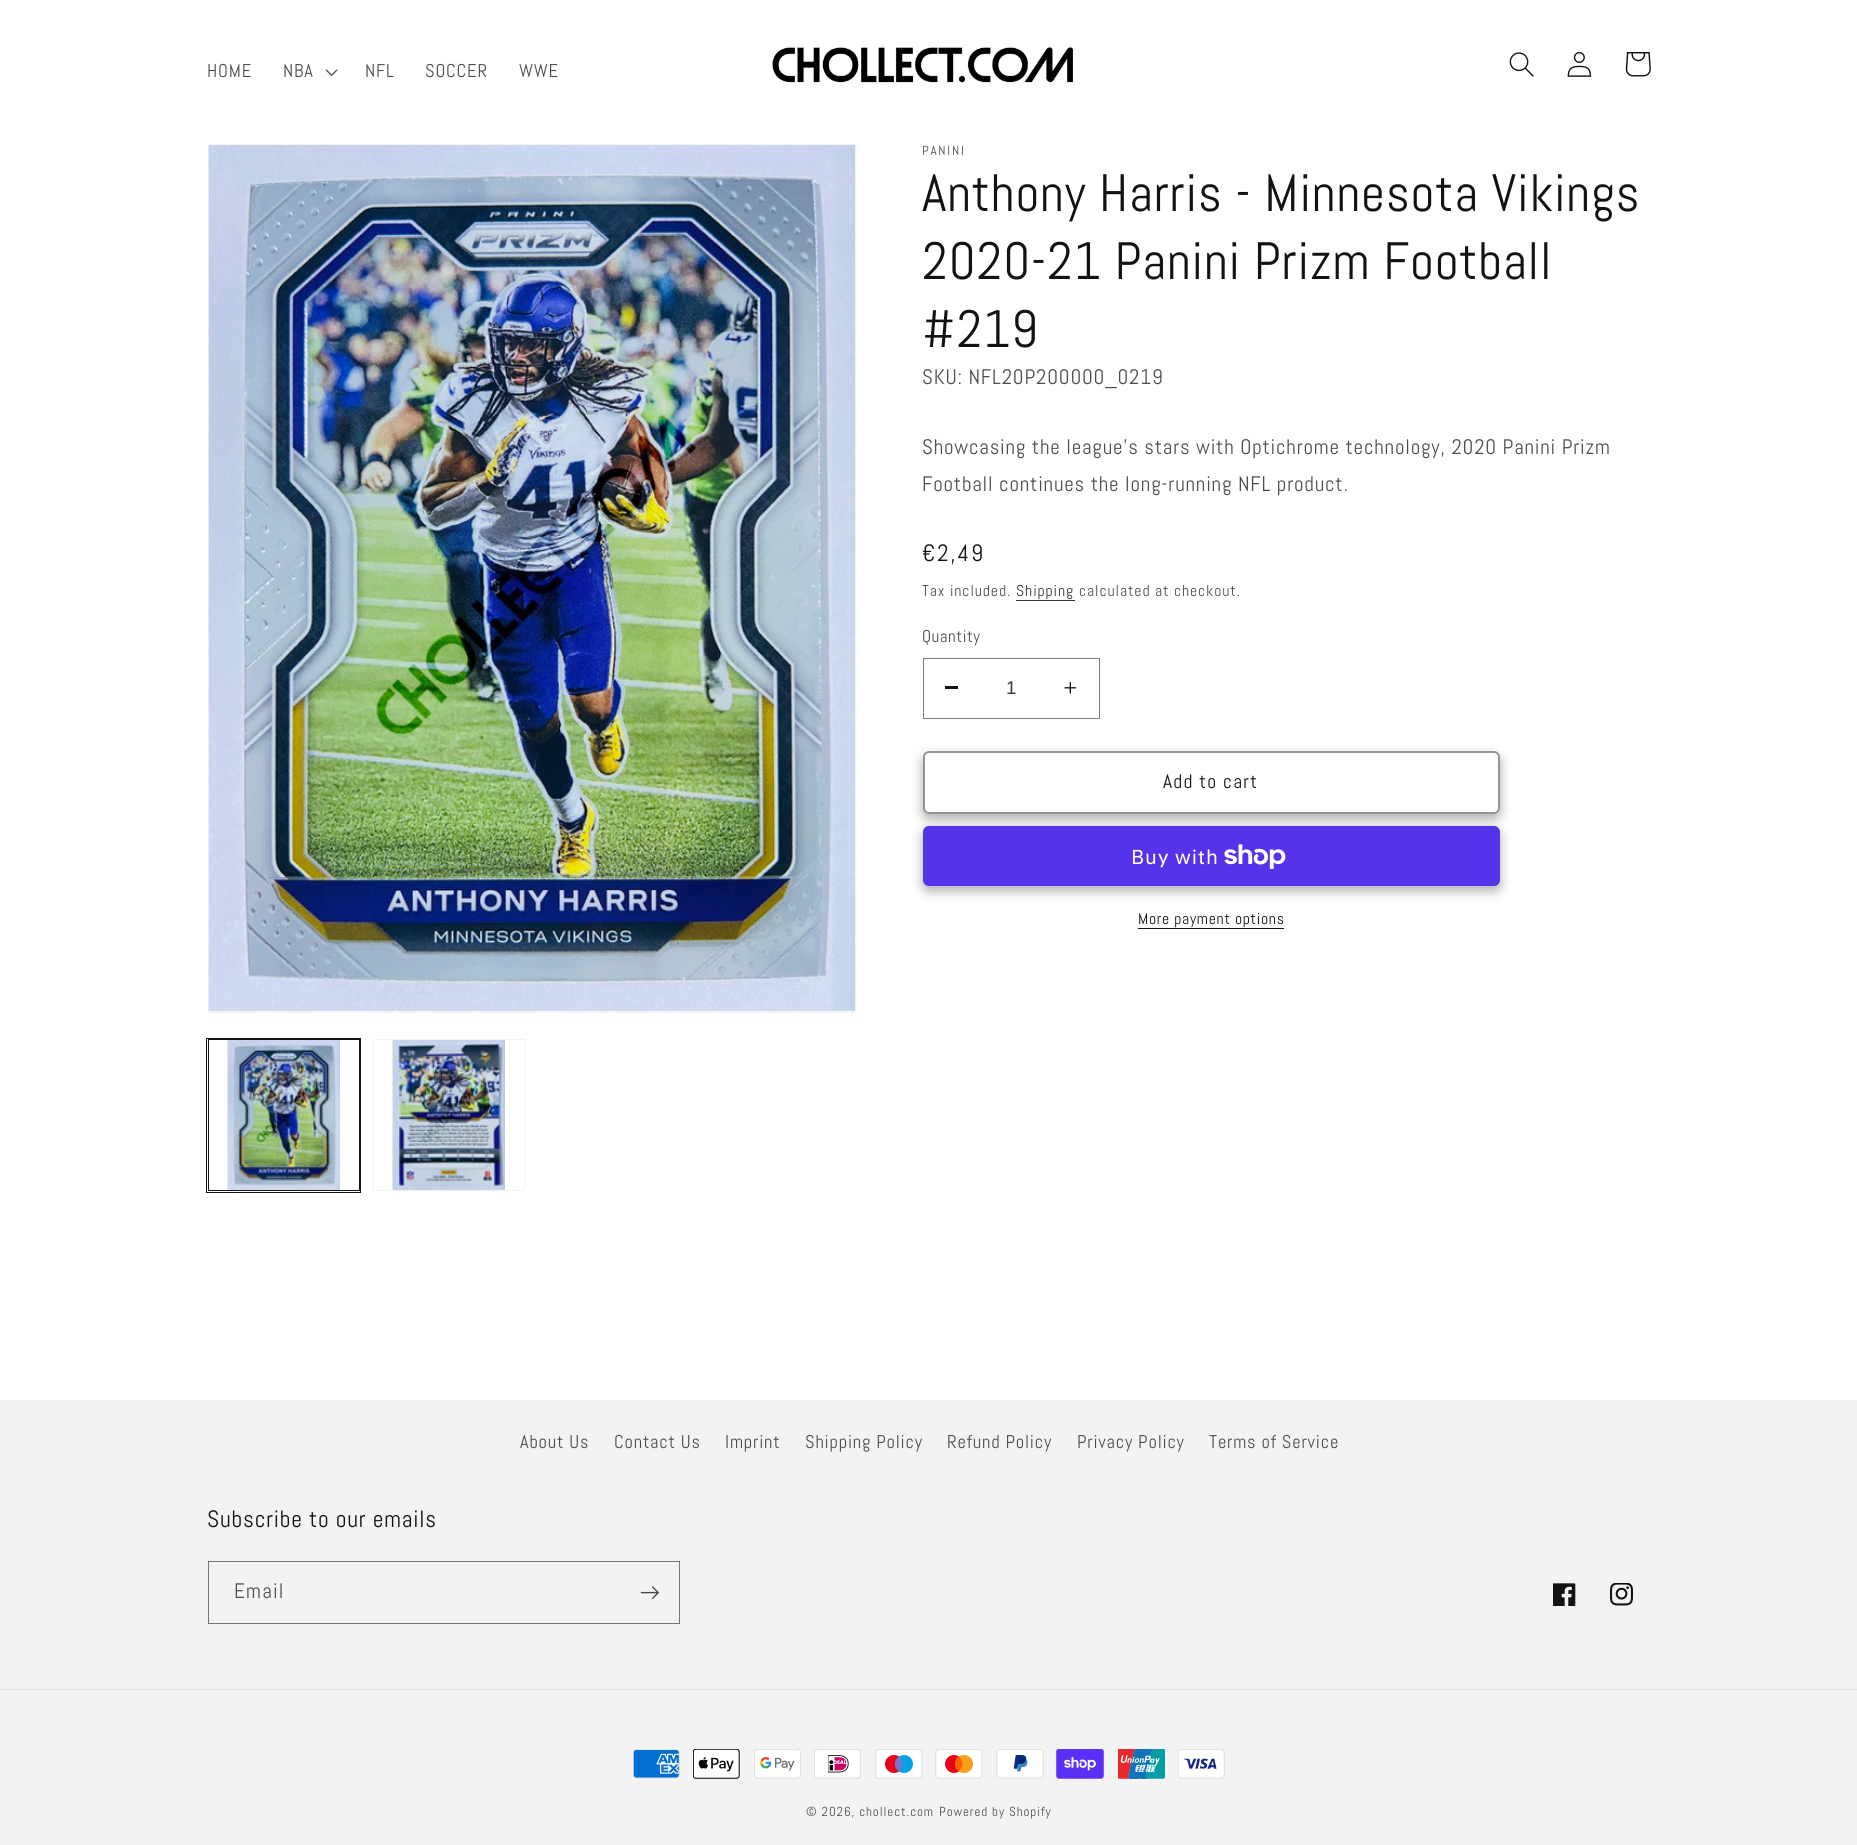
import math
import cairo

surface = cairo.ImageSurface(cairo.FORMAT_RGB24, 1857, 1845)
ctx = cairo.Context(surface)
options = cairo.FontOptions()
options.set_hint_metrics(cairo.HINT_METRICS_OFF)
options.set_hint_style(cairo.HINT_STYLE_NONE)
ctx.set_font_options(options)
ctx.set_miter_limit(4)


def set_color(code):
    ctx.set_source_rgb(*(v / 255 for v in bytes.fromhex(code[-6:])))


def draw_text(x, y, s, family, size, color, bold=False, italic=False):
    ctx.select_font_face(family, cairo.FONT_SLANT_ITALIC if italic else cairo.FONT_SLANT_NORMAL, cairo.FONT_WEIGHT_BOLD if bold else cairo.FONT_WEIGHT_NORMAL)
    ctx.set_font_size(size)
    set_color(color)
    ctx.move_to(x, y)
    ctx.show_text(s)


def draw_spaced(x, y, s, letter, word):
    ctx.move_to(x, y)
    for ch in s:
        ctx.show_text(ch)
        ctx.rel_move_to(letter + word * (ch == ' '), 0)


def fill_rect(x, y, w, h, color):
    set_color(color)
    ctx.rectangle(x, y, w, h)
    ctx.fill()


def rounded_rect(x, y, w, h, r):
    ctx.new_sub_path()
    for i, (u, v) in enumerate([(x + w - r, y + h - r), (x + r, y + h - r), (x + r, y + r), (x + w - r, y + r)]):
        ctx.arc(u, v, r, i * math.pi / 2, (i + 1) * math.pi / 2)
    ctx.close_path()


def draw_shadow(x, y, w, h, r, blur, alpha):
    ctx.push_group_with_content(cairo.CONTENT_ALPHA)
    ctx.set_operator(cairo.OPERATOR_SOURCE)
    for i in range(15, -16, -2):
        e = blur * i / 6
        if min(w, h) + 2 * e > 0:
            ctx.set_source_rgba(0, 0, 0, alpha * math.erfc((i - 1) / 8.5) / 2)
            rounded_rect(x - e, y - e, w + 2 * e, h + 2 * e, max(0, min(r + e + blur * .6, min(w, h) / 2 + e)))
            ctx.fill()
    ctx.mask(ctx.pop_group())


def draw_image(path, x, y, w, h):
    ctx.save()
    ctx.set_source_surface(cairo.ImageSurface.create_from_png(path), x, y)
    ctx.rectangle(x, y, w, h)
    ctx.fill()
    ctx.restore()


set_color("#ffffff")
ctx.paint()
ctx.select_font_face("Abel")
ctx.set_font_size(18.5)
set_color("#4d4d4d")
draw_spaced(207, 77, "HOME", 0.8, 0)
draw_spaced(283, 77, "NBA", 0.8, 0)
draw_image("assets/img1.png", 325, 69, 13, 7)
draw_spaced(365, 77, "NFL", 0.8, 0)
draw_spaced(425, 77, "SOCCER", 0.8, 0)
draw_spaced(519, 77, "WWE", 0.8, 0)
draw_image("assets/img2.png", 772, 46, 302, 38)
draw_image("assets/img3.png", 1509, 52, 25, 25)
draw_image("assets/img4.png", 1567, 51, 25, 26)
draw_image("assets/img5.png", 1625, 52, 26, 25)
ctx.rectangle(208.5, 144.5, 647, 868)
set_color("#f3f3f3")
ctx.set_line_width(1)
ctx.stroke()
draw_image("assets/img6.png", 208, 145, 647, 867)
ctx.rectangle(206.5, 1038.5, 154, 154)
set_color("#121212")
ctx.stroke()
ctx.rectangle(208.5, 1039.5, 151, 151)
ctx.stroke()
draw_image("assets/img7.png", 227, 1040, 113, 150)
ctx.rectangle(373.5, 1039.5, 151, 151)
set_color("#f3f3f3")
ctx.stroke()
draw_image("assets/img8.png", 392, 1040, 113, 150)
ctx.set_font_size(13.1)
set_color("#4d4d4d")
draw_spaced(922, 155, "PANINI", 1.75, 0)
ctx.set_font_size(52.5)
set_color("#121212")
draw_spaced(922, 211, "Anthony Harris - Minnesota Vikings", 0.8, 0)
draw_spaced(922, 279, "2020-21 Panini Prizm Football", 0.8, 0)
draw_spaced(922, 347, "#219", 0.8, 0)
ctx.set_font_size(21)
set_color("#4d4d4d")
draw_spaced(922, 384, "SKU: NFL20P200000_0219", 0.8, 0)
draw_spaced(922, 454, "Showcasing the league's stars with Optichrome technology, 2020 Panini Prizm", 0.8, 0)
draw_spaced(922, 491, "Football continues the long-running NFL product.", 0.8, 0)
ctx.set_font_size(23.6)
set_color("#121212")
draw_spaced(922, 561, "€2,49", 1.75, 0)
ctx.set_font_size(15.75)
set_color("#4d4d4d")
draw_spaced(922, 596, "Tax included.", 0.9, 0)
set_color("#363636")
draw_spaced(1016, 596, "Shipping", 0.9, 0)
fill_rect(1016, 600, 59, 1, "#363636")
set_color("#4d4d4d")
draw_spaced(1079, 596, "calculated at checkout.", 0.9, 0)
ctx.set_font_size(17)
draw_spaced(922, 642, "Quantity", 0.5, 0)
fill_rect(945, 686, 13, 3, "#121212")
draw_image("assets/img9.png", 1064, 681, 13, 13)
ctx.rectangle(923.5, 658.5, 176, 60)
set_color("#7d7d7d")
ctx.stroke()
draw_text(1006, 694, "1", "Liberation Sans", 18.5, "#363636")
set_color("#121212")
draw_shadow(923, 756, 577, 63, 6, 6, 0.35)
draw_shadow(923, 831, 577, 60, 6, 6, 0.35)
set_color("#ffffff")
rounded_rect(923, 751, 577, 63, 6)
ctx.fill()
rounded_rect(923.5, 751.5, 576, 62, 5.5)
ctx.stroke()
rounded_rect(924, 752, 575, 61, 5)
set_color("#949494")
ctx.set_line_width(2)
ctx.stroke()
ctx.select_font_face("Abel")
ctx.set_font_size(19.5)
set_color("#121212")
draw_spaced(1163, 788, "Add to cart", 1.25, 0)
set_color("#5433eb")
rounded_rect(923, 826, 577, 60, 6)
ctx.fill()
ctx.select_font_face("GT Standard")
ctx.set_font_size(20)
set_color("#ffffff")
draw_spaced(1131, 864, "Buy with", 0.8, 0)
draw_image("assets/img10.png", 1224, 844, 62, 25)
ctx.select_font_face("Abel")
ctx.set_font_size(15.75)
set_color("#121212")
draw_spaced(1138, 924, "More payment options", 0.7, 0)
fill_rect(1138, 928, 146, 1, "#121212")
fill_rect(0, 1400, 1857, 445, "#f3f3f3")
ctx.set_font_size(18.5)
set_color("#4d4d4d")
draw_spaced(520, 1448, "About Us", 0.8, 0)
draw_spaced(614, 1448, "Contact Us", 0.8, 0)
draw_spaced(725, 1448, "Imprint", 0.8, 0)
draw_spaced(805, 1448, "Shipping Policy", 0.8, 0)
draw_spaced(947, 1448, "Refund Policy", 0.8, 0)
draw_spaced(1077, 1448, "Privacy Policy", 0.8, 0)
draw_spaced(1209, 1448, "Terms of Service", 0.8, 0)
ctx.set_font_size(23.6)
set_color("#121212")
draw_spaced(207, 1527, "Subscribe to our emails", 0.8, 0)
ctx.rectangle(208.5, 1561.5, 471, 62)
set_color("#777777")
ctx.set_line_width(1)
ctx.stroke()
ctx.set_font_size(21)
set_color("#4d4d4d")
draw_spaced(234, 1598, "Email", 1.25, 0)
draw_image("assets/img11.png", 640, 1586, 19, 13)
draw_image("assets/img12.png", 1553, 1583, 23, 23)
draw_image("assets/img13.png", 1610, 1583, 23, 23)
fill_rect(0, 1689, 1857, 1, "#e1e1e1")
draw_image("assets/img14.png", 633, 1749, 47, 30)
draw_image("assets/img15.png", 693, 1749, 47, 30)
draw_image("assets/img16.png", 754, 1749, 47, 30)
draw_image("assets/img17.png", 814, 1749, 47, 30)
draw_image("assets/img18.png", 875, 1749, 48, 30)
draw_image("assets/img19.png", 935, 1749, 48, 30)
draw_image("assets/img20.png", 996, 1749, 48, 30)
draw_image("assets/img21.png", 1056, 1749, 48, 30)
draw_image("assets/img22.png", 1118, 1749, 47, 30)
draw_image("assets/img23.png", 1178, 1749, 47, 30)
ctx.set_font_size(13.1)
set_color("#4d4d4d")
draw_spaced(806, 1816, "© 2026, chollect.com", 0.9, 0)
draw_spaced(939, 1816, "Powered by Shopify", 0.9, 0)
surface.write_to_png("output.png")
